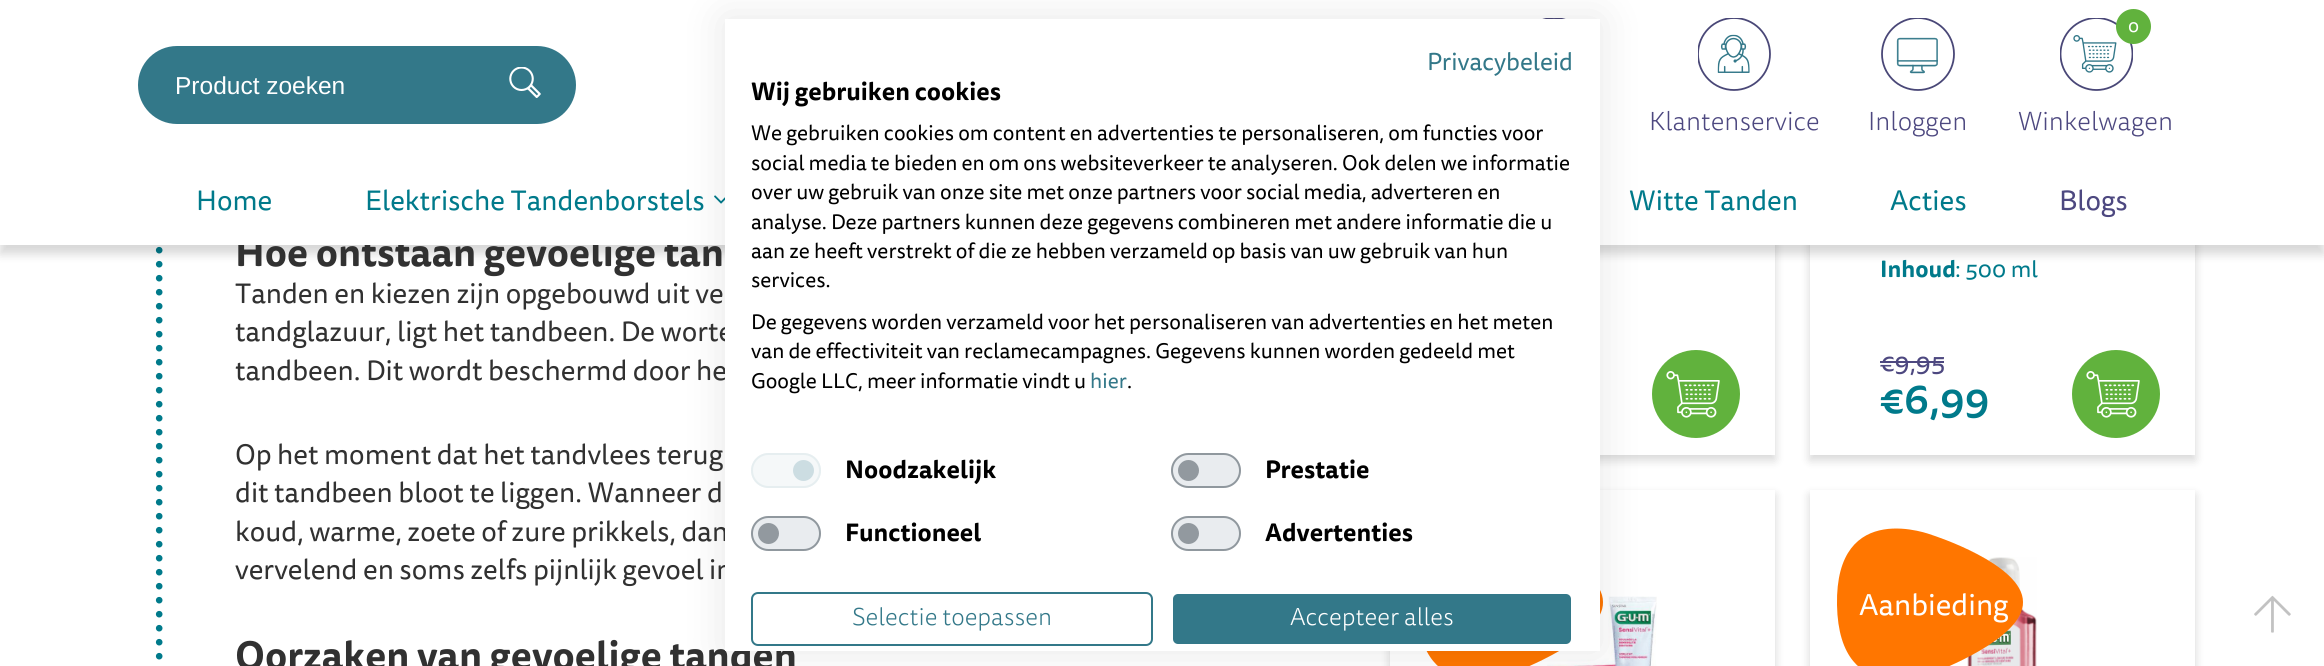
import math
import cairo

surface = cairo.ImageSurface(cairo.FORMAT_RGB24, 2324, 666)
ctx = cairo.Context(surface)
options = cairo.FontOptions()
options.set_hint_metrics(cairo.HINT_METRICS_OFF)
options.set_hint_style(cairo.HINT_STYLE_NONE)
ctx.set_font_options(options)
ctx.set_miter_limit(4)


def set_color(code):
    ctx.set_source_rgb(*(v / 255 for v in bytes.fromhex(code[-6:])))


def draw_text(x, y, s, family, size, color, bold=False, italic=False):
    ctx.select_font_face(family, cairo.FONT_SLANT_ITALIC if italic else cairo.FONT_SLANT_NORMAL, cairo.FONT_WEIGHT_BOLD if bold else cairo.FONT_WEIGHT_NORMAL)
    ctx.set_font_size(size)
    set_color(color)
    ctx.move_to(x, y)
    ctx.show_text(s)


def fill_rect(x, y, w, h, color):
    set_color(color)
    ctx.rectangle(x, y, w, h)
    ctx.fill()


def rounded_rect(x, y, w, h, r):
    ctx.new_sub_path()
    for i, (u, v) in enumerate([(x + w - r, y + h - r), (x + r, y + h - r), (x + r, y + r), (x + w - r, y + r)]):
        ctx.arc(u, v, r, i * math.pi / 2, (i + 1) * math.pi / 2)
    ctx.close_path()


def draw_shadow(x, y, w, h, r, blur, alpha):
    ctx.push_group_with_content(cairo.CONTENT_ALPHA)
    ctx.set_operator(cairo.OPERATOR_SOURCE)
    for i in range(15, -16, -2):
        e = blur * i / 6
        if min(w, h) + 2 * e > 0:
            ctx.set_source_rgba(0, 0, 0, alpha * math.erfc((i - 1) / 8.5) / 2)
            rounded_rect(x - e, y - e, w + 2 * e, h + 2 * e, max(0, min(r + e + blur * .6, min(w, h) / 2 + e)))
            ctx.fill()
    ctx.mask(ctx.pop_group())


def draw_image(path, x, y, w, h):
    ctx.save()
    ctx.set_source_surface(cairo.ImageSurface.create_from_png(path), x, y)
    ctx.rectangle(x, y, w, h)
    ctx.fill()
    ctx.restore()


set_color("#ffffff")
ctx.paint()
ctx.new_path()
ctx.move_to(159.2, -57.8)
ctx.line_to(159.2, 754.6)
set_color("#007a8b")
ctx.set_line_width(6.6)
ctx.set_line_cap(cairo.LINE_CAP_ROUND)
ctx.set_dash([0, 14])
ctx.stroke()
set_color("#000000")
draw_shadow(1390, -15, 385, 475, 0, 5, 0.16)
fill_rect(1600, 245, 175, 210, "#ffffff")
set_color("#000000")
draw_shadow(1810, -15, 385, 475, 0, 5, 0.16)
fill_rect(1810, 245, 385, 210, "#ffffff")
set_color("#000000")
draw_shadow(0, 9, 2324, 245, 0, 5, 0.16)
draw_text(235, 266, "Hoe ontstaan gevoelige tan", "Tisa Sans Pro", 38.5, "#313131", bold=True)
fill_rect(0, 0, 2324, 245, "#ffffff")
set_color("#337889")
rounded_rect(139, 47, 436, 76, 38)
ctx.fill_preserve()
ctx.set_line_width(2)
ctx.set_line_cap(cairo.LINE_CAP_BUTT)
ctx.set_dash([])
ctx.stroke()
draw_text(175, 94, "Product zoeken", "Liberation Sans", 24.5, "#ffffff")
draw_image("assets/img1.png", 509, 67, 32, 31)
draw_image("assets/img2.png", 1542, 18, 24, 1)
draw_image("assets/img3.png", 1698, 18, 73, 73)
draw_text(1649, 130, "Klantenservice", "Tisa Sans Pro Light", 26.25, "#4d4880")
draw_image("assets/img4.png", 1881, 18, 74, 73)
draw_text(1868, 130, "Inloggen", "Tisa Sans Pro Light", 26.25, "#4d4880")
draw_image("assets/img5.png", 2060, 18, 73, 73)
set_color("#61b23d")
ctx.arc(2133.5, 26.5, 17.5, 0, 2 * math.pi)
ctx.fill()
draw_text(2128, 32, "0", "Tisa Sans Pro", 18, "#ffffff")
draw_text(2018, 130, "Winkelwagen", "Tisa Sans Pro Light", 26.25, "#4d4880")
draw_text(196, 210, "Home", "Tisa Sans Pro", 28, "#007a8b")
draw_text(365, 210, "Elektrische Tandenborstels", "Tisa Sans Pro", 28, "#007a8b")
draw_image("assets/img6.png", 714, 195, 11, 9)
draw_text(1629, 210, "Witte Tanden", "Tisa Sans Pro", 28, "#007a8b")
draw_text(1890, 210, "Acties", "Tisa Sans Pro", 28, "#007a8b")
draw_text(2059, 210, "Blogs", "Tisa Sans Pro", 28, "#4d4880")
set_color("#61b23d")
ctx.new_path()
ctx.arc(1696, 394, 42, 0, 2 * math.pi)
ctx.fill_preserve()
ctx.set_line_width(4)
ctx.stroke()
set_color("#000000")
draw_shadow(1390, 495, 385, 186, 0, 5, 0.16)
fill_rect(1390, 490, 385, 176, "#ffffff")
draw_image("assets/img8.png", 1547, 596, 110, 70)
set_color("#ff7600")
ctx.new_path()
ctx.move_to(1603, 602)
ctx.curve_to(1603, 564, 1512, 535, 1512, 535)
ctx.curve_to(1512, 535, 1415, 497, 1417, 605)
ctx.curve_to(1419, 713, 1515, 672, 1515, 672)
ctx.curve_to(1515, 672, 1604, 639, 1603, 602)
ctx.close_path()
ctx.fill()
set_color("#000000")
draw_shadow(725, 19, 875, 632, 0, 21, 0.1)
draw_text(235, 341, "tandglazuur, ligt het tandbeen. De worte", "Tisa Sans Pro", 28, "#313131")
draw_text(235, 380, "tandbeen. Dit wordt beschermd door he", "Tisa Sans Pro", 28, "#313131")
draw_text(235, 541, "koud, warme, zoete of zure prikkels, dan", "Tisa Sans Pro", 28, "#313131")
draw_text(235, 579, "vervelend en soms zelfs pijnlijk gevoel in", "Tisa Sans Pro", 28, "#313131")
draw_text(235, 669, "Oorzaken van gevoelige tanden", "Tisa Sans Pro", 38.5, "#313131", bold=True)
fill_rect(725, 19, 875, 632, "#ffffff")
draw_text(1427, 70, "Privacybeleid", "Tisa Sans Pro", 24.5, "#337889")
draw_text(751, 100, "Wij gebruiken cookies", "Tisa Sans Pro", 24.5, "#000000", bold=True)
draw_text(751, 140, "We gebruiken cookies om content en advertenties te personaliseren, om functies voor", "Tisa Sans Pro", 21, "#000000")
draw_text(751, 170, "social media te bieden en om ons websiteverkeer te analyseren. Ook delen we informatie", "Tisa Sans Pro", 21, "#000000")
draw_text(751, 199, "over uw gebruik van onze site met onze partners voor social media, adverteren en", "Tisa Sans Pro", 21, "#000000")
draw_text(751, 229, "analyse. Deze partners kunnen deze gegevens combineren met andere informatie die u", "Tisa Sans Pro", 21, "#000000")
draw_text(751, 258, "aan ze heeft verstrekt of die ze hebben verzameld op basis van uw gebruik van hun", "Tisa Sans Pro", 21, "#000000")
draw_text(751, 287, "services.", "Tisa Sans Pro", 21, "#000000")
draw_text(751, 329, "De gegevens worden verzameld voor het personaliseren van advertenties en het meten", "Tisa Sans Pro", 21, "#000000")
draw_text(751, 358, "van de effectiviteit van reclamecampagnes. Gegevens kunnen worden gedeeld met", "Tisa Sans Pro", 21, "#000000")
draw_text(751, 388, "Google LLC, meer informatie vindt u", "Tisa Sans Pro", 21, "#000000")
draw_text(1090, 388, "hier", "Tisa Sans Pro", 21, "#337889")
draw_text(1127, 388, ".", "Tisa Sans Pro", 21, "#000000")
set_color("#f5f8f9")
rounded_rect(751, 453, 70, 35, 17.5)
ctx.fill()
set_color("#ccdde2")
ctx.arc(803.5, 470.5, 10.5, 0, 2 * math.pi)
ctx.fill()
rounded_rect(752, 454, 68, 33, 16.5)
set_color("#e6eef0")
ctx.set_line_width(2)
ctx.stroke()
draw_text(845, 478, "Noodzakelijk", "Tisa Sans Pro", 24.5, "#000000", bold=True)
set_color("#e9ecef")
rounded_rect(1171, 453, 70, 35, 17.5)
ctx.fill()
set_color("#92999f")
ctx.arc(1188.5, 470.5, 10.5, 0, 2 * math.pi)
ctx.fill()
rounded_rect(1172, 454, 68, 33, 16.5)
ctx.set_source_rgba(0.424, 0.459, 0.49, 0.7)
ctx.stroke()
draw_text(1265, 478, "Prestatie", "Tisa Sans Pro", 24.5, "#000000", bold=True)
set_color("#e9ecef")
rounded_rect(751, 516, 70, 35, 17.5)
ctx.fill()
set_color("#92999f")
ctx.arc(768.5, 533.5, 10.5, 0, 2 * math.pi)
ctx.fill()
rounded_rect(752, 517, 68, 33, 16.5)
ctx.set_source_rgba(0.424, 0.459, 0.49, 0.7)
ctx.stroke()
draw_text(845, 541, "Functioneel", "Tisa Sans Pro", 24.5, "#000000", bold=True)
set_color("#e9ecef")
rounded_rect(1171, 516, 70, 35, 17.5)
ctx.fill()
set_color("#92999f")
ctx.arc(1188.5, 533.5, 10.5, 0, 2 * math.pi)
ctx.fill()
rounded_rect(1172, 517, 68, 33, 16.5)
ctx.set_source_rgba(0.424, 0.459, 0.49, 0.7)
ctx.stroke()
draw_text(1265, 541, "Advertenties", "Tisa Sans Pro", 24.5, "#000000", bold=True)
rounded_rect(752, 593, 400, 52, 6)
set_color("#337889")
ctx.stroke()
draw_text(852, 625, "Selectie toepassen", "Tisa Sans Pro Light", 24.5, "#337889")
rounded_rect(1172, 593, 400, 52, 6)
ctx.fill_preserve()
set_color("#ffffff")
ctx.stroke()
draw_text(1290, 625, "Accepteer alles", "Tisa Sans Pro Light", 24.5, "#ffffff")
draw_text(235, 303, "Tanden en kiezen zijn opgebouwd uit ve", "Tisa Sans Pro", 28, "#313131")
draw_text(235, 464, "Op het moment dat het tandvlees terug", "Tisa Sans Pro", 28, "#313131")
draw_text(235, 502, "dit tandbeen bloot te liggen. Wanneer d", "Tisa Sans Pro", 28, "#313131")
draw_image("assets/img7.png", 1666, 371, 54, 47)
draw_text(1880, 277, "Inhoud", "Tisa Sans Pro", 23, "#007a8b", bold=True)
draw_text(1955, 277, ": 500 ml", "Tisa Sans Pro", 23, "#007a8b")
draw_text(1880, 371, "€9,95", "Tisa Sans Pro", 26.25, "#4d4880")
fill_rect(1880, 361, 64, 2, "#4d4880")
draw_text(1880, 413, "€6,99", "Tisa Sans Pro Medium", 42, "#007a8b")
set_color("#61b23d")
ctx.new_path()
ctx.arc(2116, 394, 42, 0, 2 * math.pi)
ctx.fill_preserve()
ctx.set_line_width(4)
ctx.stroke()
draw_image("assets/img7.png", 2086, 371, 54, 47)
set_color("#000000")
draw_shadow(1810, 495, 385, 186, 0, 5, 0.16)
fill_rect(1810, 490, 385, 176, "#ffffff")
draw_image("assets/img9.png", 1967, 557, 70, 109)
set_color("#ff7600")
ctx.new_path()
ctx.move_to(2023, 602)
ctx.curve_to(2023, 564, 1932, 535, 1932, 535)
ctx.curve_to(1932, 535, 1835, 497, 1837, 605)
ctx.curve_to(1839, 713, 1935, 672, 1935, 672)
ctx.curve_to(1935, 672, 2024, 639, 2023, 602)
ctx.close_path()
ctx.fill()
draw_text(1859, 615, "Aanbieding", "Tisa Sans Pro", 29.75, "#ffffff")
draw_image("assets/img10.png", 2254, 595, 37, 38)
surface.write_to_png("output.png")
